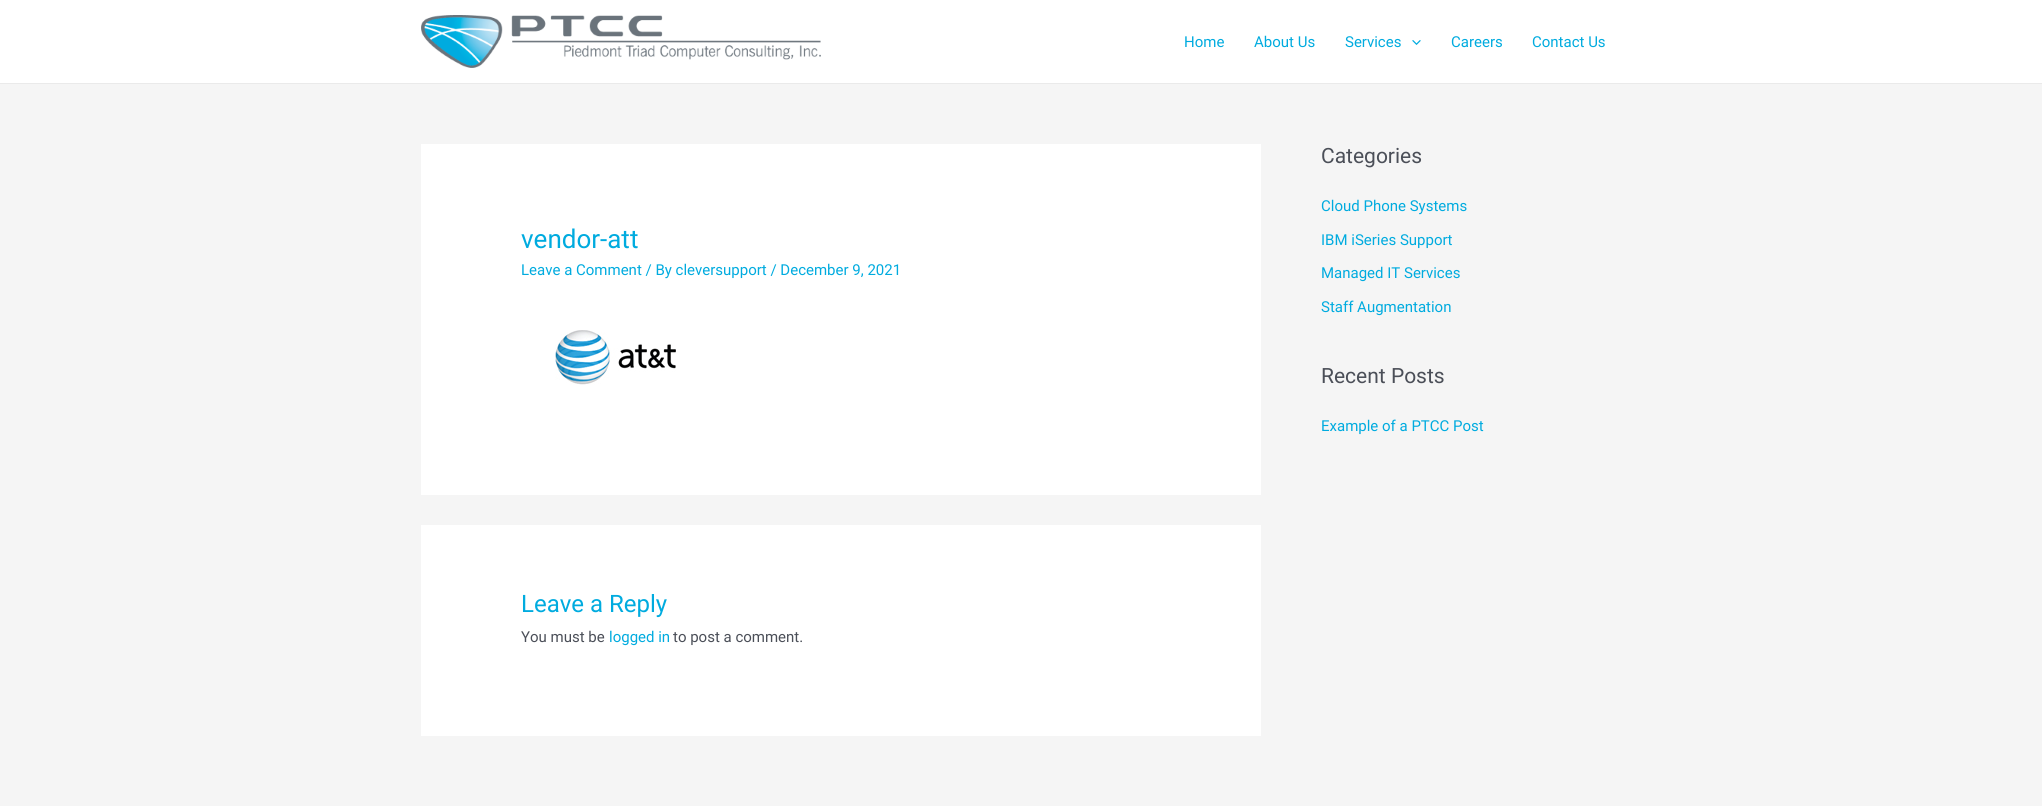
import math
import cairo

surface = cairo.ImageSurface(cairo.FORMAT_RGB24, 2042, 806)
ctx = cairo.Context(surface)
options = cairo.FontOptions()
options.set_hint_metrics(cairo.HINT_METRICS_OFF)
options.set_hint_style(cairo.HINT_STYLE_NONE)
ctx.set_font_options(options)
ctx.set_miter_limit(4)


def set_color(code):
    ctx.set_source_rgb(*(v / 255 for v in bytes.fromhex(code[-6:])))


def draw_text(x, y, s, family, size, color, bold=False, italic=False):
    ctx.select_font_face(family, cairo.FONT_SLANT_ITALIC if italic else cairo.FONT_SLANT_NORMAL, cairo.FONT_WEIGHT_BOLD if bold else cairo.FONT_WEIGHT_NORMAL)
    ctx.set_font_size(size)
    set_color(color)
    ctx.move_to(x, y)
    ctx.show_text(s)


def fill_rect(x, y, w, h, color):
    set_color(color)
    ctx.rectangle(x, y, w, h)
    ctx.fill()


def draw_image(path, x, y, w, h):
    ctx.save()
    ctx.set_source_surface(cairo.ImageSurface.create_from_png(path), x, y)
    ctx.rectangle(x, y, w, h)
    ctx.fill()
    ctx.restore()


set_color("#f5f5f5")
ctx.paint()
fill_rect(0, 0, 2042, 83, "#ffffff")
fill_rect(0, 83, 2042, 1, "#eaeaea")
draw_image("assets/img1.png", 421, 15, 400, 53)
draw_text(1184, 47, "Home", "Roboto", 15, "#00abdf")
draw_text(1254, 47, "About Us", "Roboto", 15, "#00abdf")
draw_text(1345, 47, "Services", "Roboto", 15, "#00abdf")
draw_image("assets/img2.png", 1412, 40, 9, 5)
draw_text(1451, 47, "Careers", "Roboto", 15, "#00abdf")
draw_text(1532, 47, "Contact Us", "Roboto", 15, "#00abdf")
fill_rect(421, 144, 840, 351, "#ffffff")
draw_text(521, 248, "vendor-att", "Roboto", 26, "#00abdf")
draw_text(521, 275, "Leave a Comment / By cleversupport / December 9, 2021", "Roboto", 15, "#00abdf")
draw_image("assets/img3.png", 555, 330, 121, 55)
fill_rect(421, 525, 840, 211, "#ffffff")
draw_text(521, 612, "Leave a Reply", "Roboto", 24, "#00abdf")
draw_text(521, 642, "You must be", "Roboto", 15, "#4b4f58")
draw_text(609, 642, "logged in", "Roboto", 15, "#00abdf")
draw_text(673, 642, "to post a comment.", "Roboto", 15, "#4b4f58")
draw_text(1321, 163, "Categories", "Roboto", 21, "#4b4f58")
draw_text(1321, 211, "Cloud Phone Systems", "Roboto", 15, "#00abdf")
draw_text(1321, 245, "IBM iSeries Support", "Roboto", 15, "#00abdf")
draw_text(1321, 278, "Managed IT Services", "Roboto", 15, "#00abdf")
draw_text(1321, 312, "Staff Augmentation", "Roboto", 15, "#00abdf")
draw_text(1321, 383, "Recent Posts", "Roboto", 21, "#4b4f58")
draw_text(1321, 431, "Example of a PTCC Post", "Roboto", 15, "#00abdf")
surface.write_to_png("output.png")
